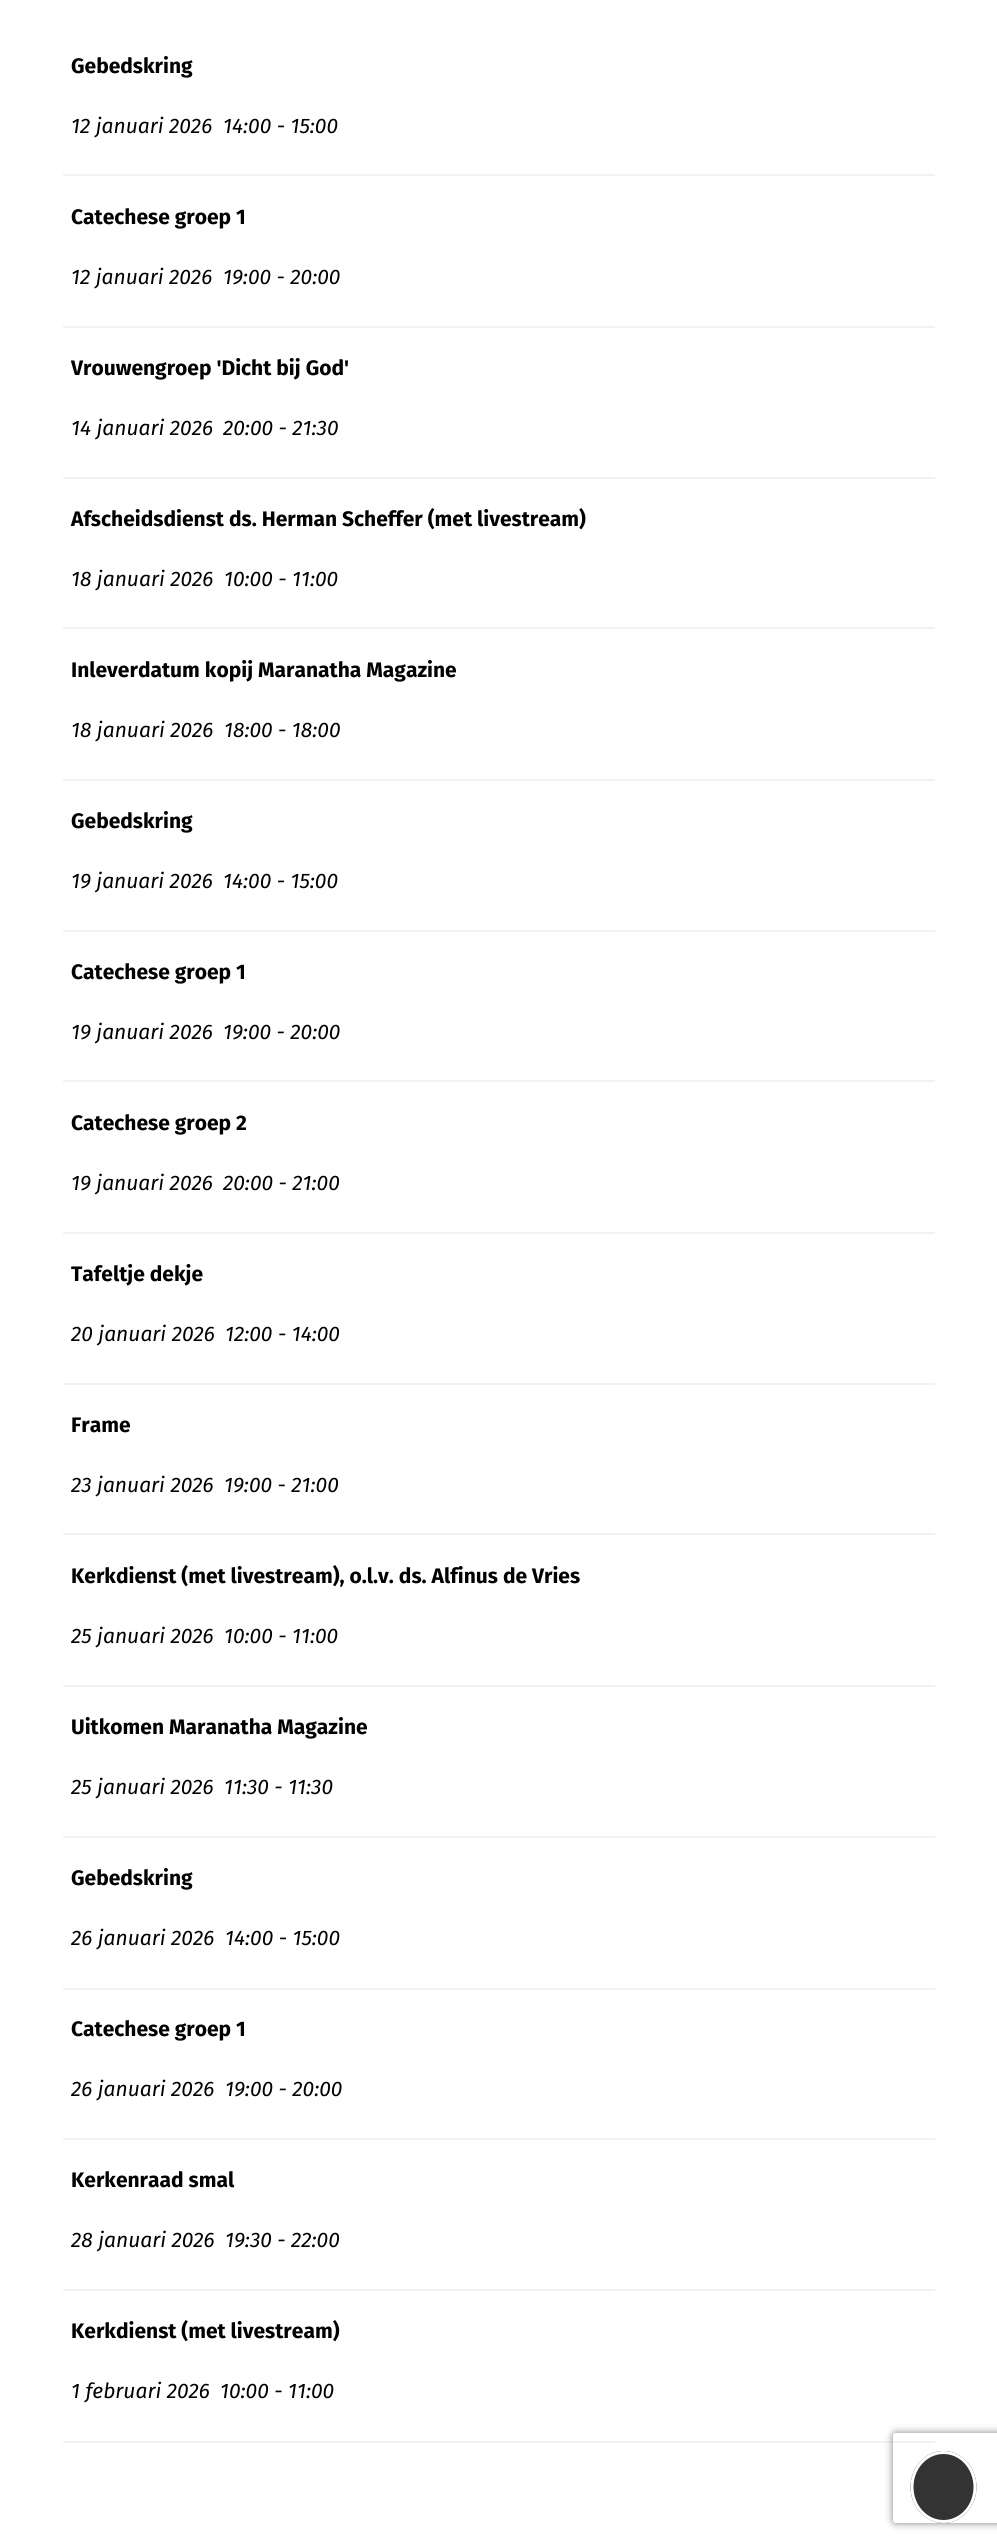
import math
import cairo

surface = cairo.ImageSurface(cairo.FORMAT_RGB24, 997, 2544)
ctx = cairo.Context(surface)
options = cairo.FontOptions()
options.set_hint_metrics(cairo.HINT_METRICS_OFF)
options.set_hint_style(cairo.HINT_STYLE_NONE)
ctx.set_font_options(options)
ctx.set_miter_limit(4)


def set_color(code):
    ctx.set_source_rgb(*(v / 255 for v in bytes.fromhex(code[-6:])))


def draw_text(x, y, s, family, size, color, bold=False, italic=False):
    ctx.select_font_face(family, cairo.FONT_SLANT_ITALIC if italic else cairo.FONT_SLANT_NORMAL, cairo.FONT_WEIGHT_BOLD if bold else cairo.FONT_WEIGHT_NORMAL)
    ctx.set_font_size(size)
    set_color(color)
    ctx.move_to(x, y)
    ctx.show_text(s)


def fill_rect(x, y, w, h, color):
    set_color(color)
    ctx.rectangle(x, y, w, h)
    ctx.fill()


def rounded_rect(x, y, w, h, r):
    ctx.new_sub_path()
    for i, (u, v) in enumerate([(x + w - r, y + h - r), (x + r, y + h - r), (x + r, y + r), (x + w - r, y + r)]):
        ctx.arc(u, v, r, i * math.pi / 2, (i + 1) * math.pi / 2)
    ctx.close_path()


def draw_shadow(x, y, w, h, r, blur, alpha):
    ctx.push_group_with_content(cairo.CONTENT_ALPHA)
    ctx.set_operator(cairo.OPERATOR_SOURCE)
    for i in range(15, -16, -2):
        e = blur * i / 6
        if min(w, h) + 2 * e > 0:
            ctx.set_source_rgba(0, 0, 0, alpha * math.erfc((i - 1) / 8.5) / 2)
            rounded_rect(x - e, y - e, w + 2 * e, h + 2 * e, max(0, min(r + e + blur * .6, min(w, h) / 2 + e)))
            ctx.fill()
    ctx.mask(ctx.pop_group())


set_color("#ffffff")
ctx.paint()
fill_rect(63, 174, 872, 2, "#f2f2f2")
draw_text(71, 73, "Gebedskring", "Fira Sans", 21, "#000000", bold=True)
draw_text(71, 133, "12 januari 2026", "Fira Sans", 21, "#000000", italic=True)
draw_text(223, 133, "14:00 - 15:00", "Fira Sans", 21, "#000000", italic=True)
fill_rect(63, 326, 872, 2, "#f2f2f2")
draw_text(71, 224, "Catechese groep 1", "Fira Sans", 21, "#000000", bold=True)
draw_text(71, 284, "12 januari 2026", "Fira Sans", 21, "#000000", italic=True)
draw_text(223, 284, "19:00 - 20:00", "Fira Sans", 21, "#000000", italic=True)
fill_rect(63, 477, 872, 2, "#f2f2f2")
ctx.save()
ctx.rectangle(71, 350, 856, 120)
ctx.clip()
draw_text(71, 375, "Vrouwengroep 'Dicht bij God'", "Fira Sans", 21, "#000000", bold=True)
ctx.restore()
draw_text(71, 435, "14 januari 2026", "Fira Sans", 21, "#000000", italic=True)
draw_text(223, 435, "20:00 - 21:30", "Fira Sans", 21, "#000000", italic=True)
fill_rect(63, 627, 872, 2, "#f2f2f2")
draw_text(71, 526, "Afscheidsdienst ds. Herman Scheffer (met livestream)", "Fira Sans", 21, "#000000", bold=True)
draw_text(71, 586, "18 januari 2026", "Fira Sans", 21, "#000000", italic=True)
draw_text(224, 586, "10:00 - 11:00", "Fira Sans", 21, "#000000", italic=True)
fill_rect(63, 779, 872, 2, "#f2f2f2")
draw_text(71, 677, "Inleverdatum kopij Maranatha Magazine", "Fira Sans", 21, "#000000", bold=True)
draw_text(71, 737, "18 januari 2026", "Fira Sans", 21, "#000000", italic=True)
draw_text(224, 737, "18:00 - 18:00", "Fira Sans", 21, "#000000", italic=True)
fill_rect(63, 930, 872, 2, "#f2f2f2")
draw_text(71, 828, "Gebedskring", "Fira Sans", 21, "#000000", bold=True)
draw_text(71, 888, "19 januari 2026", "Fira Sans", 21, "#000000", italic=True)
draw_text(223, 888, "14:00 - 15:00", "Fira Sans", 21, "#000000", italic=True)
fill_rect(63, 1080, 872, 2, "#f2f2f2")
draw_text(71, 979, "Catechese groep 1", "Fira Sans", 21, "#000000", bold=True)
draw_text(71, 1039, "19 januari 2026", "Fira Sans", 21, "#000000", italic=True)
draw_text(223, 1039, "19:00 - 20:00", "Fira Sans", 21, "#000000", italic=True)
fill_rect(63, 1232, 872, 2, "#f2f2f2")
draw_text(71, 1130, "Catechese groep 2", "Fira Sans", 21, "#000000", bold=True)
draw_text(71, 1190, "19 januari 2026", "Fira Sans", 21, "#000000", italic=True)
draw_text(223, 1190, "20:00 - 21:00", "Fira Sans", 21, "#000000", italic=True)
fill_rect(63, 1383, 872, 2, "#f2f2f2")
ctx.save()
ctx.rectangle(71, 1256, 856, 120)
ctx.clip()
draw_text(71, 1281, "Tafeltje dekje", "Fira Sans", 21, "#000000", bold=True)
ctx.restore()
draw_text(71, 1341, "20 januari 2026", "Fira Sans", 21, "#000000", italic=True)
draw_text(225, 1341, "12:00 - 14:00", "Fira Sans", 21, "#000000", italic=True)
fill_rect(63, 1533, 872, 2, "#f2f2f2")
draw_text(71, 1432, "Frame", "Fira Sans", 21, "#000000", bold=True)
draw_text(71, 1492, "23 januari 2026", "Fira Sans", 21, "#000000", italic=True)
draw_text(224, 1492, "19:00 - 21:00", "Fira Sans", 21, "#000000", italic=True)
fill_rect(63, 1685, 872, 2, "#f2f2f2")
draw_text(71, 1583, "Kerkdienst (met livestream), o.l.v. ds. Alfinus de Vries", "Fira Sans", 21, "#000000", bold=True)
draw_text(71, 1643, "25 januari 2026", "Fira Sans", 21, "#000000", italic=True)
draw_text(224, 1643, "10:00 - 11:00", "Fira Sans", 21, "#000000", italic=True)
fill_rect(63, 1836, 872, 2, "#f2f2f2")
draw_text(71, 1734, "Uitkomen Maranatha Magazine", "Fira Sans", 21, "#000000", bold=True)
draw_text(71, 1794, "25 januari 2026", "Fira Sans", 21, "#000000", italic=True)
draw_text(224, 1794, "11:30 - 11:30", "Fira Sans", 21, "#000000", italic=True)
fill_rect(63, 1988, 872, 2, "#f2f2f2")
draw_text(71, 1885, "Gebedskring", "Fira Sans", 21, "#000000", bold=True)
draw_text(71, 1945, "26 januari 2026", "Fira Sans", 21, "#000000", italic=True)
draw_text(225, 1945, "14:00 - 15:00", "Fira Sans", 21, "#000000", italic=True)
fill_rect(63, 2138, 872, 2, "#f2f2f2")
draw_text(71, 2036, "Catechese groep 1", "Fira Sans", 21, "#000000", bold=True)
draw_text(71, 2096, "26 januari 2026", "Fira Sans", 21, "#000000", italic=True)
draw_text(225, 2096, "19:00 - 20:00", "Fira Sans", 21, "#000000", italic=True)
fill_rect(63, 2289, 872, 2, "#f2f2f2")
draw_text(71, 2187, "Kerkenraad smal", "Fira Sans", 21, "#000000", bold=True)
draw_text(71, 2247, "28 januari 2026", "Fira Sans", 21, "#000000", italic=True)
draw_text(225, 2247, "19:30 - 22:00", "Fira Sans", 21, "#000000", italic=True)
fill_rect(63, 2441, 872, 2, "#f2f2f2")
draw_text(71, 2338, "Kerkdienst (met livestream)", "Fira Sans", 21, "#000000", bold=True)
draw_text(71, 2398, "1 februari 2026", "Fira Sans", 21, "#000000", italic=True)
draw_text(220, 2398, "10:00 - 11:00", "Fira Sans", 21, "#000000", italic=True)
set_color("#333333")
ctx.new_path()
ctx.move_to(943.5, 2451)
ctx.curve_to(961.5, 2451, 976.5, 2467, 976.5, 2487)
ctx.curve_to(976.5, 2507, 961.5, 2523, 943.5, 2523)
ctx.curve_to(925.5, 2523, 910.5, 2507, 910.5, 2487)
ctx.curve_to(910.5, 2467, 925.5, 2451, 943.5, 2451)
ctx.close_path()
ctx.fill()
ctx.new_path()
ctx.move_to(943.5, 2452.5)
ctx.curve_to(961, 2452.5, 975, 2468, 975, 2487)
ctx.curve_to(975, 2506, 961, 2521.5, 943.5, 2521.5)
ctx.curve_to(926, 2521.5, 912, 2506, 912, 2487)
ctx.curve_to(912, 2468, 926, 2452.5, 943.5, 2452.5)
ctx.close_path()
set_color("#ffffff")
ctx.set_line_width(3)
ctx.stroke()
ctx.save()
ctx.set_fill_rule(cairo.FILL_RULE_EVEN_ODD)
ctx.new_path()
ctx.move_to(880, 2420)
ctx.line_to(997, 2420)
ctx.line_to(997, 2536)
ctx.line_to(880, 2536)
ctx.close_path()
ctx.move_to(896, 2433)
ctx.line_to(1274, 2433)
ctx.curve_to(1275.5, 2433, 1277, 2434.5, 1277, 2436)
ctx.line_to(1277, 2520)
ctx.curve_to(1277, 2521.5, 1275.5, 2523, 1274, 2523)
ctx.line_to(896, 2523)
ctx.curve_to(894.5, 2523, 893, 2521.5, 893, 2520)
ctx.line_to(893, 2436)
ctx.curve_to(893, 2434.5, 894.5, 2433, 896, 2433)
ctx.close_path()
ctx.clip()
set_color("#808080")
draw_shadow(893, 2433, 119, 90, 3, 4, 1)
ctx.restore()
surface.write_to_png("output.png")
